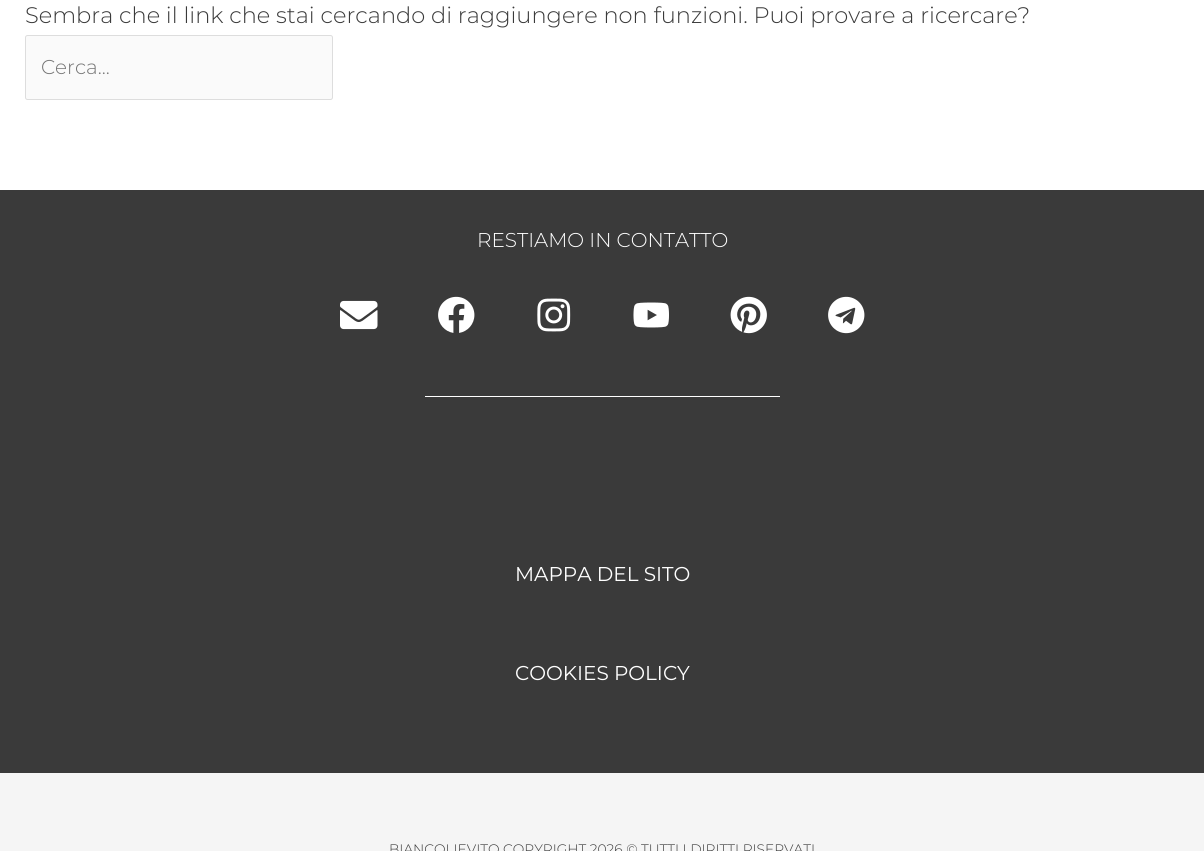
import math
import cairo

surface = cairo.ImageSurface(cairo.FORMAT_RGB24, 1204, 851)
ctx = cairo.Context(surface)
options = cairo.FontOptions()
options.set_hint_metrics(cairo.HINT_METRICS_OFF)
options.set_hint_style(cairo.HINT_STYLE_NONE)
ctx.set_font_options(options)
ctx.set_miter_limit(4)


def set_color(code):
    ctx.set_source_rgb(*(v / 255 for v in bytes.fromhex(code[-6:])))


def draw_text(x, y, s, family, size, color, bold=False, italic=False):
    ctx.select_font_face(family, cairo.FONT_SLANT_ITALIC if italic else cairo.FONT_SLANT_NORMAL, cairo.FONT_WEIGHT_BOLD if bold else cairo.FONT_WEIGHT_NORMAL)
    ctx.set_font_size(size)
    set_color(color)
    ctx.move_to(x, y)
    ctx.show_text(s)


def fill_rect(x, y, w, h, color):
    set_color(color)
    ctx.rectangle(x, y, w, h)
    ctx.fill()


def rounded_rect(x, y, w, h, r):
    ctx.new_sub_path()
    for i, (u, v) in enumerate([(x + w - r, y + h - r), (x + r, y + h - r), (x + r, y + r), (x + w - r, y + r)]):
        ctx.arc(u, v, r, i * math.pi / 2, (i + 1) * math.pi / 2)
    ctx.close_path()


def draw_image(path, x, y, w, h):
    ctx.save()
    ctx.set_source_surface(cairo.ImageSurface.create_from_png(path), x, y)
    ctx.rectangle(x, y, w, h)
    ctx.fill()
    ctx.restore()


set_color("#ffffff")
ctx.paint()
draw_text(25, 23, "Sembra che il link che stai cercando di raggiungere non funzioni. Puoi provare a ricercare?", "Montserrat Light", 22.5, "#3a3a3a")
set_color("#fafafa")
rounded_rect(25.5, 35.5, 307, 64, 2)
ctx.fill_preserve()
set_color("#dddddd")
ctx.set_line_width(1)
ctx.stroke()
draw_text(41, 74, "Cerca...", "Montserrat Light", 20, "#757575")
fill_rect(0, 190, 1204, 583, "#3a3a3a")
draw_text(477, 247, "RESTIAMO IN CONTATTO", "Montserrat Light", 20, "#ffffff")
draw_image("assets/img1.png", 340, 300, 38, 30)
draw_image("assets/img2.png", 438, 296, 37, 37)
draw_image("assets/img3.png", 537, 298, 34, 34)
draw_image("assets/img4.png", 633, 302, 36, 26)
draw_image("assets/img5.png", 730, 296, 37, 38)
draw_image("assets/img6.png", 828, 296, 37, 38)
fill_rect(425, 396, 355, 1, "#ffffff")
draw_text(515, 581, "MAPPA DEL SITO", "Montserrat", 20, "#ffffff")
draw_text(515, 680, "COOKIES POLICY", "Montserrat", 20, "#ffffff")
fill_rect(0, 773, 1204, 78, "#f5f5f5")
draw_text(389, 854, "BIANCOLIEVITO COPYRIGHT 2026 © TUTTI I DIRITTI RISERVATI", "Montserrat Light", 13.75, "#3a3a3a")
surface.write_to_png("output.png")
